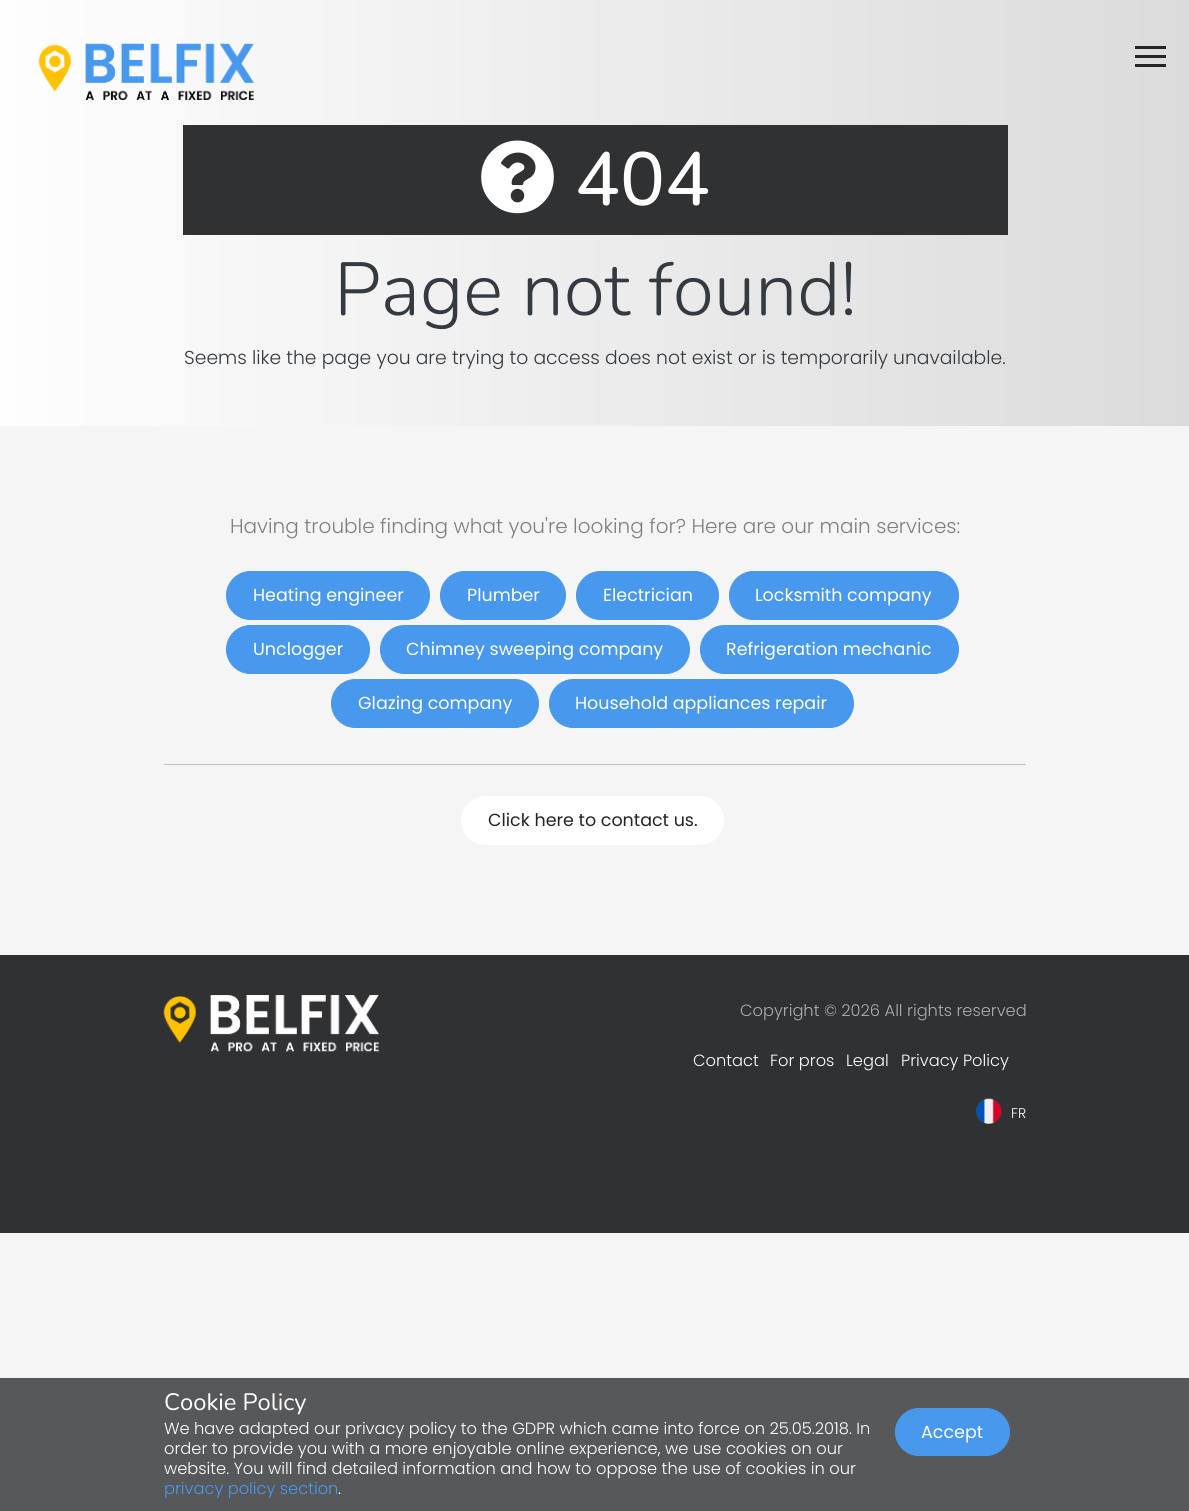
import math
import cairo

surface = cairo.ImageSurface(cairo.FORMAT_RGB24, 1189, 1511)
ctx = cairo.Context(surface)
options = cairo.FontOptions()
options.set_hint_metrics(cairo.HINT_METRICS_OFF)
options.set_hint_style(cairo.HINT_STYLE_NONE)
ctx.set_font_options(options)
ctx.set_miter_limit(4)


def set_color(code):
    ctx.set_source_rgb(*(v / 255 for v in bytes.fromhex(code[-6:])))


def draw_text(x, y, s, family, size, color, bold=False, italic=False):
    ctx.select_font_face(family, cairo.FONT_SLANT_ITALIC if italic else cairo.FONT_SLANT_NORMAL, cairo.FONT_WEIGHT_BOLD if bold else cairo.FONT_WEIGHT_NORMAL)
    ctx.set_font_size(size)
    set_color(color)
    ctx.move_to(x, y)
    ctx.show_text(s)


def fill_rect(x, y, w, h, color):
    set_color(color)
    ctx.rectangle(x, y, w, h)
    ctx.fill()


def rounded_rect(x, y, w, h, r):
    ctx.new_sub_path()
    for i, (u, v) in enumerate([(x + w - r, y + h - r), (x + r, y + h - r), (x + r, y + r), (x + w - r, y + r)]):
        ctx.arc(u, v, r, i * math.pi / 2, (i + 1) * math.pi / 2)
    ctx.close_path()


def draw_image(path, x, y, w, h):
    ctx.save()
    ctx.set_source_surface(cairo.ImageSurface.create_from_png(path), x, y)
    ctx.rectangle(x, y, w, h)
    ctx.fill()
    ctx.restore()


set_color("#f5f5f5")
ctx.paint()
gradient = cairo.LinearGradient(0, 213, 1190, 213)
gradient.add_color_stop_rgba(0, 0.996, 0.996, 0.996, 1)
gradient.add_color_stop_rgba(1, 0.859, 0.859, 0.859, 1)
ctx.set_source(gradient)
ctx.rectangle(0, 0, 1189, 426)
ctx.fill()
draw_image("assets/img1.png", 38, 43, 216, 57)
fill_rect(1135, 55, 31, 3, "#252525")
fill_rect(1135, 46, 31, 3, "#252525")
fill_rect(1135, 64, 31, 3, "#252525")
fill_rect(183, 125, 825, 110, "#303133")
draw_image("assets/img2.png", 481, 140, 73, 74)
draw_text(575, 205, "404", "Nunito Medium", 75, "#ffffff")
draw_text(334, 315, "Page not found!", "Nunito Light", 75, "#343a40")
draw_text(184, 364, "Seems like the page you are trying to access does not exist or is temporarily unavailable.", "Poppins Light", 18.75, "#343a40")
draw_text(230, 533, "Having trouble finding what you're looking for? Here are our main services:", "Poppins Light", 20, "#808080")
fill_rect(164, 764, 862, 1, "#c1c1c1")
set_color("#4898ee")
rounded_rect(226.5, 571.5, 203, 48, 24)
ctx.fill_preserve()
ctx.set_line_width(1)
ctx.stroke()
draw_text(253, 601, "Heating engineer", "Poppins", 17.5, "#ffffff")
set_color("#4898ee")
rounded_rect(440.5, 571.5, 125, 48, 24)
ctx.fill_preserve()
ctx.stroke()
draw_text(467, 601, "Plumber", "Poppins", 17.5, "#ffffff")
set_color("#4898ee")
rounded_rect(576.5, 571.5, 142, 48, 24)
ctx.fill_preserve()
ctx.stroke()
draw_text(603, 601, "Electrician", "Poppins", 17.5, "#ffffff")
set_color("#4898ee")
rounded_rect(729.5, 571.5, 229, 48, 24)
ctx.fill_preserve()
ctx.stroke()
draw_text(755, 601, "Locksmith company", "Poppins", 17.5, "#ffffff")
set_color("#4898ee")
rounded_rect(226.5, 625.5, 143, 48, 24)
ctx.fill_preserve()
ctx.stroke()
draw_text(253, 655, "Unclogger", "Poppins", 17.5, "#ffffff")
set_color("#4898ee")
rounded_rect(380.5, 625.5, 309, 48, 24)
ctx.fill_preserve()
ctx.stroke()
draw_text(406, 655, "Chimney sweeping company", "Poppins", 17.5, "#ffffff")
set_color("#4898ee")
rounded_rect(700.5, 625.5, 258, 48, 24)
ctx.fill_preserve()
ctx.stroke()
draw_text(726, 655, "Refrigeration mechanic", "Poppins", 17.5, "#ffffff")
set_color("#4898ee")
rounded_rect(331.5, 679.5, 207, 48, 24)
ctx.fill_preserve()
ctx.stroke()
draw_text(358, 709, "Glazing company", "Poppins", 17.5, "#ffffff")
set_color("#4898ee")
rounded_rect(549.5, 679.5, 304, 48, 24)
ctx.fill_preserve()
ctx.stroke()
draw_text(575, 709, "Household appliances repair", "Poppins", 17.5, "#ffffff")
rounded_rect(461, 796, 263, 49, 24.5)
ctx.fill()
draw_text(488, 826, "Click here to contact us.", "Poppins", 17.5, "#212529")
fill_rect(0, 955, 1189, 278, "#303133")
draw_image("assets/img3.png", 163, 995, 216, 57)
draw_text(740, 1016, "Copyright © 2026 All rights reserved", "Poppins Light", 16.25, "#acadad")
draw_text(693, 1066, "Contact", "Poppins Light", 16.25, "#ffffff")
draw_text(770, 1066, "For pros", "Poppins Light", 16.25, "#ffffff")
draw_text(846, 1066, "Legal", "Poppins Light", 16.25, "#ffffff")
draw_text(901, 1066, "Privacy Policy", "Poppins Light", 16.25, "#ffffff")
draw_image("assets/img4.png", 976, 1098, 26, 26)
draw_text(1011, 1118, "FR", "Poppins Light", 14, "#ffffff")
fill_rect(0, 1378, 1189, 133, "#57585a")
draw_text(164, 1410, "Cookie Policy", "Nunito", 23.75, "#ffffff")
draw_text(164, 1434, "We have adapted our privacy policy to the GDPR which came into force on 25.05.2018. In", "Poppins Light", 16.25, "#ffffff")
draw_text(164, 1454, "order to provide you with a more enjoyable online experience, we use cookies on our", "Poppins Light", 16.25, "#ffffff")
draw_text(164, 1474, "website. You will find detailed information and how to oppose the use of cookies in our", "Poppins Light", 16.25, "#ffffff")
draw_text(164, 1494, "privacy policy section", "Poppins Light", 16.25, "#4898ee")
draw_text(338, 1494, ".", "Poppins Light", 16.25, "#ffffff")
set_color("#4898ee")
rounded_rect(895.5, 1408.5, 114, 47, 23.5)
ctx.fill_preserve()
ctx.stroke()
draw_text(921, 1438, "Accept", "Poppins", 17.5, "#ffffff")
surface.write_to_png("output.png")
